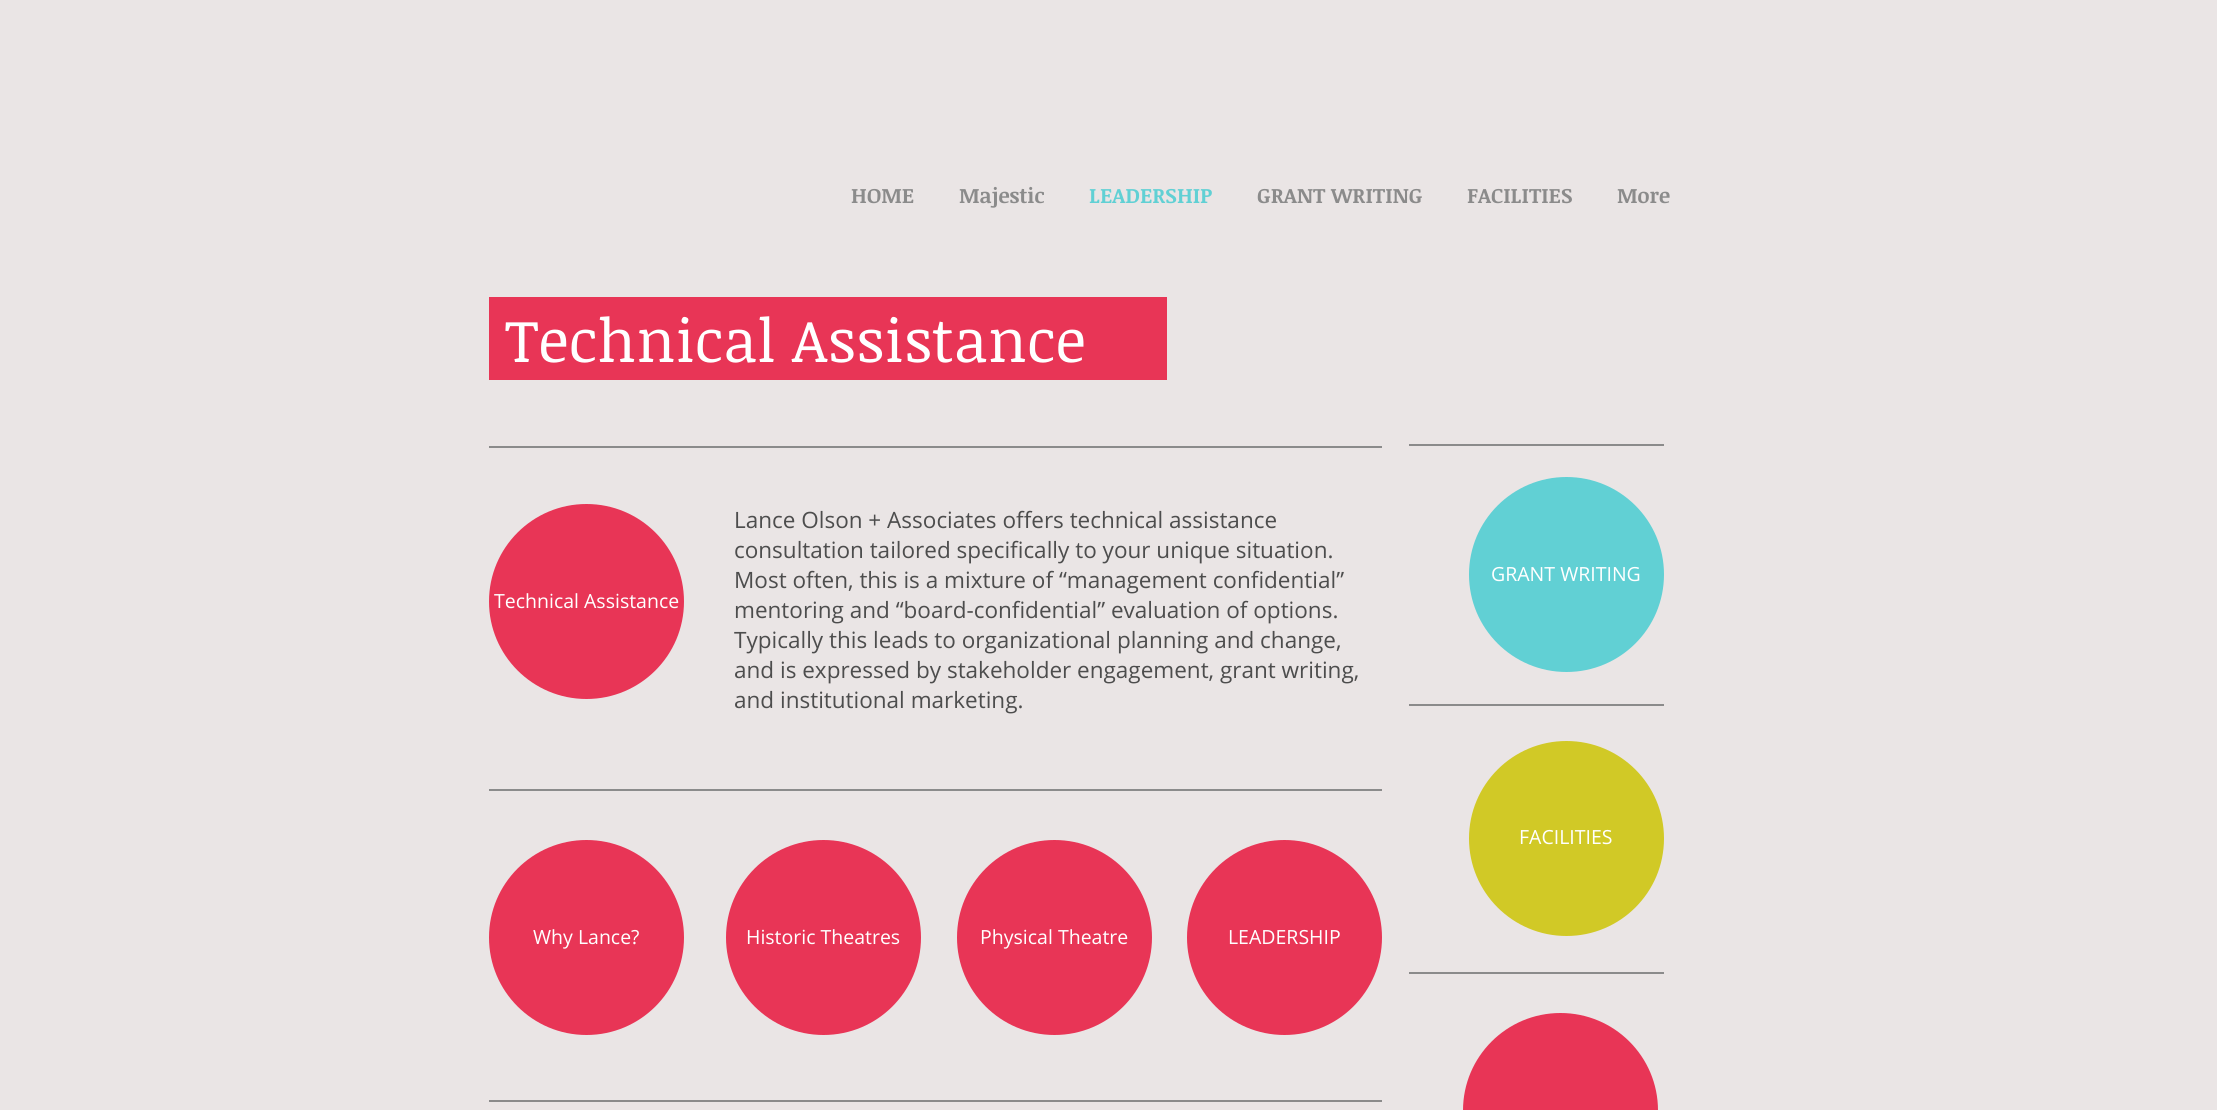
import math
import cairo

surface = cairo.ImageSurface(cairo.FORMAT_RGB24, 2217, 1110)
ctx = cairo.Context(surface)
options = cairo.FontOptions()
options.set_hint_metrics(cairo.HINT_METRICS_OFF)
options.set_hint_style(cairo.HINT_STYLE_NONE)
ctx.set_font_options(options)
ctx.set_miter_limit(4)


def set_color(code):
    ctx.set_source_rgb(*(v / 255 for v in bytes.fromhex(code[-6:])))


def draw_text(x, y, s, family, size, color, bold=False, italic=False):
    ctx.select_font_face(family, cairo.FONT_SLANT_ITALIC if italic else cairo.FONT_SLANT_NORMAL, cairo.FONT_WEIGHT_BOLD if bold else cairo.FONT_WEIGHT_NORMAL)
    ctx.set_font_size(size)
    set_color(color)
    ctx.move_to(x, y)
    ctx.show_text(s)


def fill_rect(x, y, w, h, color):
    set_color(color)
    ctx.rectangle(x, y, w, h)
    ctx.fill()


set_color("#eae5e5")
ctx.paint()
draw_text(851, 203, "HOME", "Noticia Text", 21, "#8b8b8b", bold=True)
draw_text(959, 203, "Majestic", "Noticia Text", 21, "#8b8b8b", bold=True)
draw_text(1089, 203, "LEADERSHIP", "Noticia Text", 21, "#61d0d4", bold=True)
draw_text(1257, 203, "GRANT WRITING", "Noticia Text", 21, "#8b8b8b", bold=True)
draw_text(1467, 203, "FACILITIES", "Noticia Text", 21, "#8b8b8b", bold=True)
draw_text(1617, 203, "More", "Noticia Text", 21, "#8b8b8b", bold=True)
fill_rect(489, 297, 678, 83, "#e83556")
draw_text(505, 362, "Technical Assistance", "Noticia Text", 60, "#ffffff")
fill_rect(1409, 444, 255, 2, "#8b8b8b")
fill_rect(489, 446, 893, 2, "#8b8b8b")
draw_text(734, 528, "Lance Olson + Associates offers technical assistance", "Open Sans", 22.5, "#4d4d4d")
draw_text(734, 558, "consultation tailored specifically to your unique situation.", "Open Sans", 22.5, "#4d4d4d")
draw_text(734, 588, "Most often, this is a mixture of “management confidential”", "Open Sans", 22.5, "#4d4d4d")
draw_text(734, 618, "mentoring and “board-confidential” evaluation of options.", "Open Sans", 22.5, "#4d4d4d")
draw_text(734, 648, "Typically this leads to organizational planning and change,", "Open Sans", 22.5, "#4d4d4d")
draw_text(734, 678, "and is expressed by stakeholder engagement, grant writing,", "Open Sans", 22.5, "#4d4d4d")
draw_text(734, 708, "and institutional marketing.", "Open Sans", 22.5, "#4d4d4d")
set_color("#61d0d4")
ctx.new_path()
ctx.arc(1566.5, 574.5, 97.5, 0, 2 * math.pi)
ctx.fill()
draw_text(1491, 581, "GRANT WRITING", "Open Sans", 19.5, "#ffffff")
set_color("#e83556")
ctx.new_path()
ctx.arc(586.5, 601.5, 97.5, 0, 2 * math.pi)
ctx.fill()
draw_text(494, 608, "Technical Assistance", "Open Sans", 19.5, "#ffffff")
fill_rect(1409, 704, 255, 2, "#8b8b8b")
fill_rect(489, 789, 893, 2, "#8b8b8b")
set_color("#d1c926")
ctx.new_path()
ctx.arc(1566.5, 838.5, 96.5, 0, 2 * math.pi)
ctx.fill_preserve()
ctx.stroke()
draw_text(1519, 844, "FACILITIES", "Open Sans", 19.5, "#ffffff")
set_color("#e83556")
ctx.new_path()
ctx.arc(586.5, 937.5, 97.5, 0, 2 * math.pi)
ctx.fill()
draw_text(533, 944, "Why Lance?", "Open Sans", 19.5, "#ffffff")
set_color("#e83556")
ctx.new_path()
ctx.arc(823.5, 937.5, 97.5, 0, 2 * math.pi)
ctx.fill()
draw_text(746, 944, "Historic Theatres", "Open Sans", 19.5, "#ffffff")
set_color("#e83556")
ctx.new_path()
ctx.arc(1054.5, 937.5, 97.5, 0, 2 * math.pi)
ctx.fill()
draw_text(980, 944, "Physical Theatre", "Open Sans", 19.5, "#ffffff")
set_color("#e83556")
ctx.new_path()
ctx.arc(1284.5, 937.5, 97.5, 0, 2 * math.pi)
ctx.fill()
draw_text(1228, 944, "LEADERSHIP", "Open Sans", 19.5, "#ffffff")
fill_rect(1409, 972, 255, 2, "#8b8b8b")
fill_rect(489, 1100, 893, 2, "#8b8b8b")
set_color("#e83556")
ctx.new_path()
ctx.arc(1560.5, 1110.5, 97.5, 0, 2 * math.pi)
ctx.fill()
surface.write_to_png("output.png")
